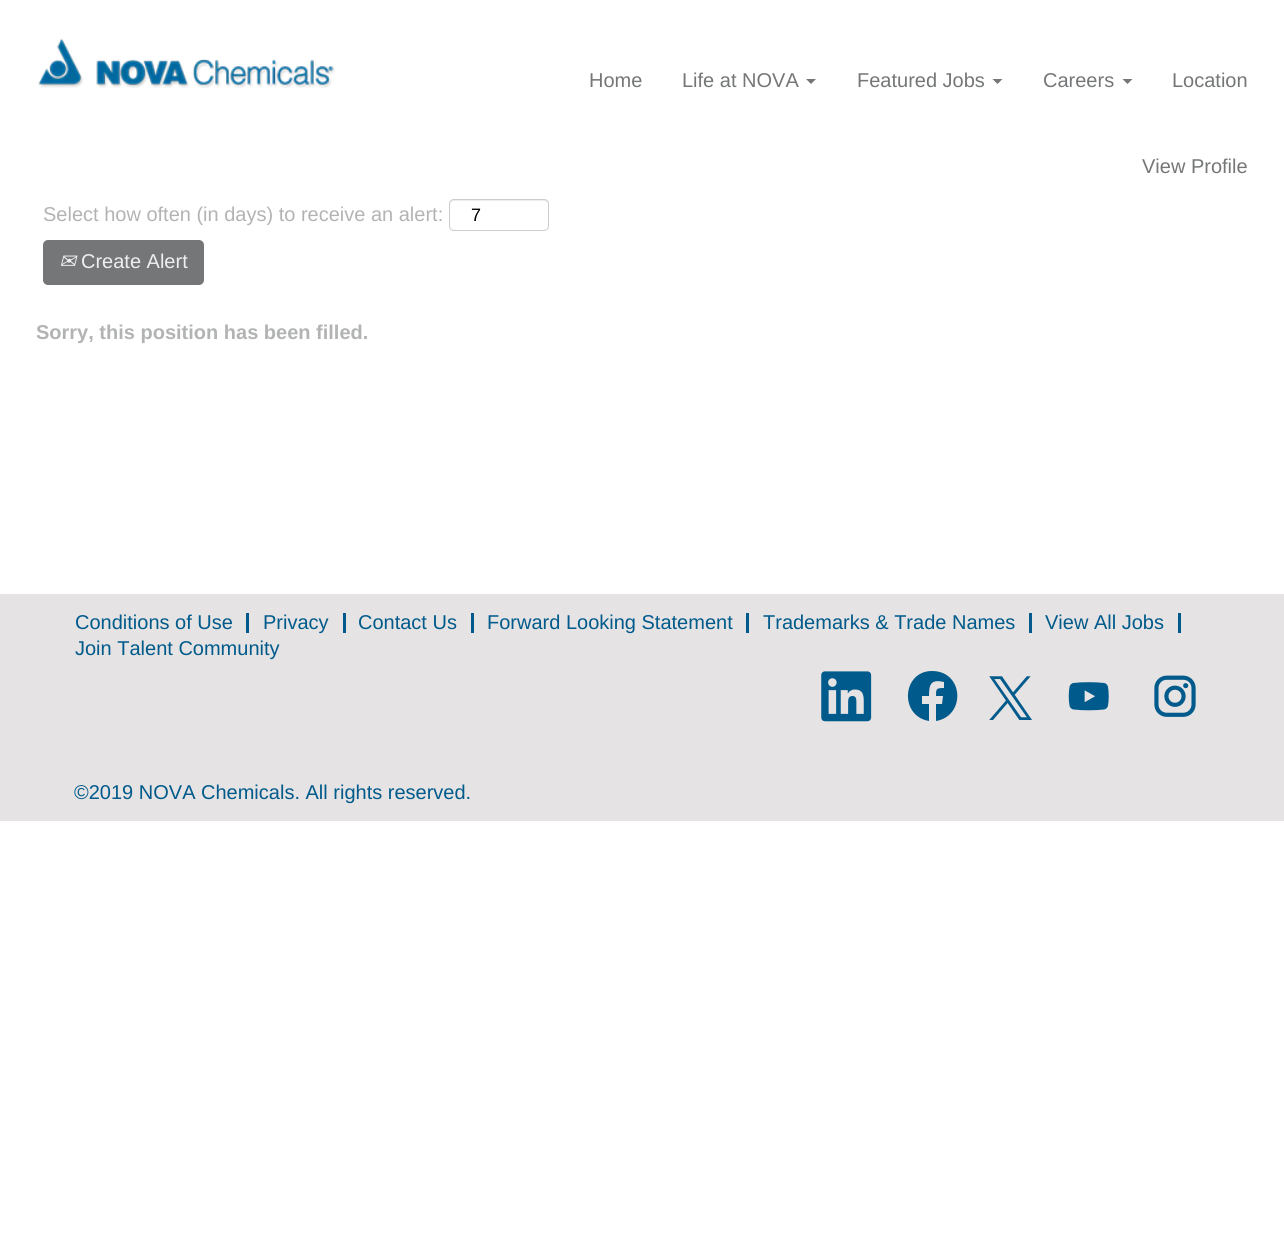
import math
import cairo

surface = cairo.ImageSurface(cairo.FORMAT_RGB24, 1284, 1244)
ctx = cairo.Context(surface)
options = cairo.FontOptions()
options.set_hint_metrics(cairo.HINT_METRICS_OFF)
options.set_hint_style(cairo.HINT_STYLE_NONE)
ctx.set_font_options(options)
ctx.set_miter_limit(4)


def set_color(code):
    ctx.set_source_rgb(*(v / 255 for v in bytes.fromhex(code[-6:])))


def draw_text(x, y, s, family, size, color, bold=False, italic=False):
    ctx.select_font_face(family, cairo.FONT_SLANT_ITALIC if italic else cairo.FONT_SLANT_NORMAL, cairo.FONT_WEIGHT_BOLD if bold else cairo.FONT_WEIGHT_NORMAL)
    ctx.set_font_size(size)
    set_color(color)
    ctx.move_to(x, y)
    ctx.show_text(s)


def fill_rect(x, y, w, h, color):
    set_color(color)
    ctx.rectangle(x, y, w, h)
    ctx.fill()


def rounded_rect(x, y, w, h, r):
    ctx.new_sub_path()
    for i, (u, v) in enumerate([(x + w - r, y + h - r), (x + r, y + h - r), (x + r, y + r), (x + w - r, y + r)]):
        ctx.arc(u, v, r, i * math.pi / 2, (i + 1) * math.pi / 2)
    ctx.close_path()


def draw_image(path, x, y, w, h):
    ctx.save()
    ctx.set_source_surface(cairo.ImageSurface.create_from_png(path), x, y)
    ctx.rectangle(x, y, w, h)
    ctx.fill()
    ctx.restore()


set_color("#ffffff")
ctx.paint()
draw_image("assets/img1.png", 38, 38, 297, 50)
draw_text(589, 87, "Home", "Liberation Sans", 20, "#747678")
draw_text(682, 87, "Life at NOVA", "Liberation Sans", 20, "#747678")
ctx.new_path()
ctx.move_to(806, 79)
ctx.line_to(816, 79)
ctx.line_to(811, 84)
ctx.close_path()
ctx.fill()
draw_text(857, 87, "Featured Jobs", "Liberation Sans", 20, "#747678")
ctx.new_path()
ctx.move_to(992.5, 79)
ctx.line_to(1002.5, 79)
ctx.line_to(997.5, 84)
ctx.close_path()
ctx.fill()
draw_text(1043, 87, "Careers", "Liberation Sans", 20, "#747678")
ctx.new_path()
ctx.move_to(1122.5, 79)
ctx.line_to(1132.5, 79)
ctx.line_to(1127.5, 84)
ctx.close_path()
ctx.fill()
draw_text(1172, 87, "Location", "Liberation Sans", 20, "#747678")
draw_text(1142, 173, "View Profile", "Liberation Sans", 20, "#747678")
draw_text(43, 221, "Select how often (in days) to receive an alert:", "Liberation Sans", 20, "#b2b4b3")
set_color("#ececec")
ctx.new_path()
ctx.move_to(454, 201)
ctx.line_to(544, 201)
ctx.curve_to(546, 201, 548, 203, 548, 205)
ctx.curve_to(548, 196, 533, 200, 529, 200)
ctx.line_to(469, 200)
ctx.curve_to(465, 200, 450, 196, 450, 205)
ctx.curve_to(450, 203, 452, 201, 454, 201)
ctx.close_path()
ctx.fill()
rounded_rect(449.5, 199.5, 99, 31, 4.5)
set_color("#cccccc")
ctx.set_line_width(1)
ctx.stroke()
draw_text(471, 221, "7", "Liberation Sans", 18, "#000000")
set_color("#747678")
rounded_rect(43, 240, 161, 45, 5)
ctx.fill()
draw_text(59, 268, "✉", "DejaVu Sans", 20, "#efefef", italic=True)
draw_text(81, 268, "Create Alert", "Liberation Sans", 20, "#efefef")
draw_text(36, 339, "Sorry, this position has been filled.", "Liberation Sans", 20, "#b2b4b3", bold=True)
fill_rect(0, 594, 1284, 227, "#e5e3e3")
fill_rect(246, 613, 3, 20, "#005a8b")
draw_text(75, 629, "Conditions of Use", "Liberation Sans", 20, "#005a8b")
fill_rect(343, 613, 3, 20, "#005a8b")
draw_text(263, 629, "Privacy", "Liberation Sans", 20, "#005a8b")
fill_rect(471, 613, 3, 20, "#005a8b")
draw_text(358, 629, "Contact Us", "Liberation Sans", 20, "#005a8b")
fill_rect(746, 613, 3, 20, "#005a8b")
draw_text(487, 629, "Forward Looking Statement", "Liberation Sans", 20, "#005a8b")
fill_rect(1029, 613, 3, 20, "#005a8b")
draw_text(763, 629, "Trademarks & Trade Names", "Liberation Sans", 20, "#005a8b")
fill_rect(1178, 613, 3, 20, "#005a8b")
draw_text(1045, 629, "View All Jobs", "Liberation Sans", 20, "#005a8b")
draw_text(75, 655, "Join Talent Community", "Liberation Sans", 20, "#005a8b")
draw_image("assets/img2.png", 821, 671, 51, 51)
ctx.new_path()
ctx.move_to(932, 671)
ctx.curve_to(902, 671, 899, 716, 929, 721)
ctx.line_to(929, 704)
ctx.line_to(922, 704)
ctx.line_to(922, 696)
ctx.line_to(929, 696)
ctx.curve_to(929, 684, 931, 679, 944, 682)
ctx.line_to(944, 688)
ctx.curve_to(936, 688, 936, 689, 936, 696)
ctx.line_to(943, 696)
ctx.line_to(942, 704)
ctx.line_to(936, 704)
ctx.line_to(936, 721)
ctx.curve_to(966, 716, 964, 671, 932, 671)
ctx.close_path()
ctx.fill()
draw_image("assets/img3.png", 989, 676, 43, 44)
draw_image("assets/img4.png", 1068, 682, 41, 29)
draw_image("assets/img5.png", 1154, 675, 42, 42)
draw_text(74, 799, "©2019 NOVA Chemicals. All rights reserved.", "Liberation Sans", 20, "#005a8b")
surface.write_to_png("output.png")
